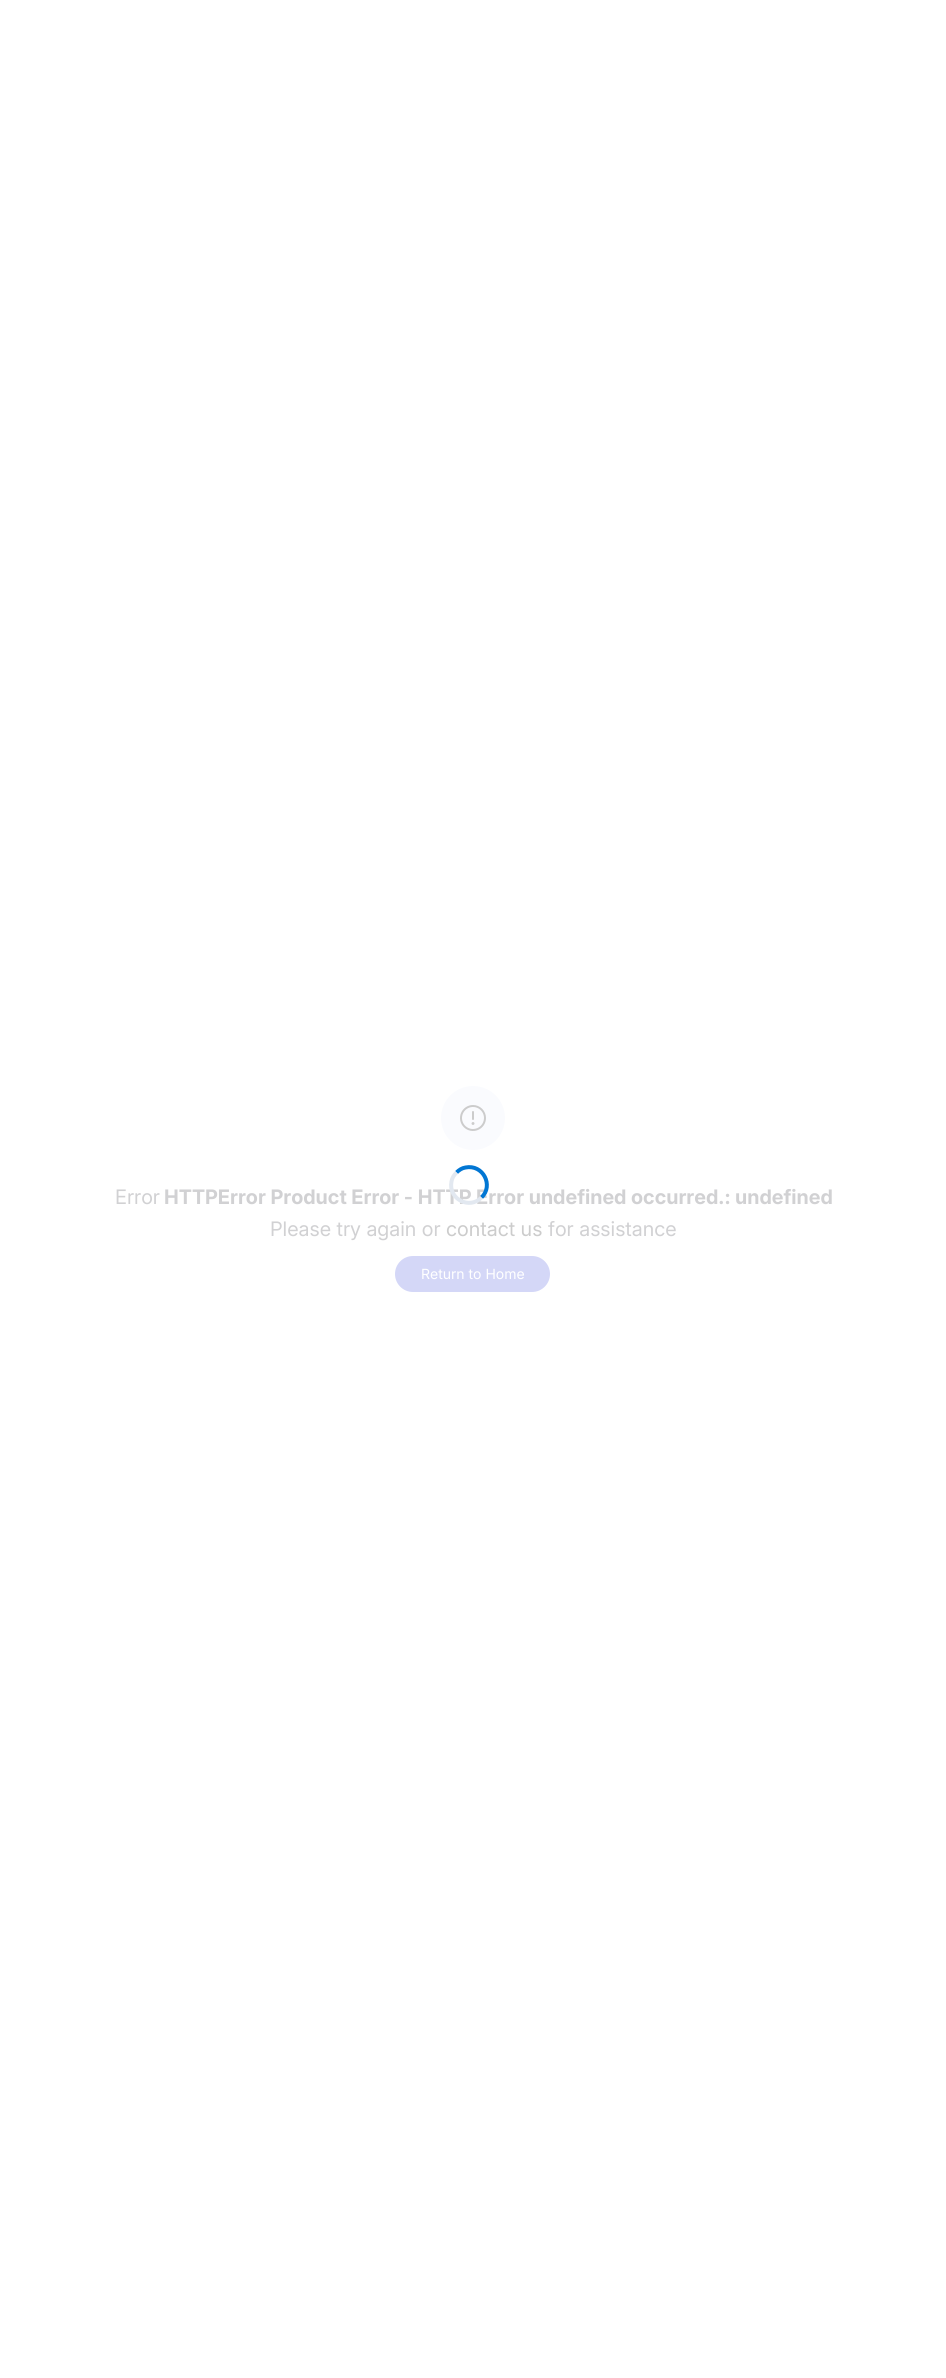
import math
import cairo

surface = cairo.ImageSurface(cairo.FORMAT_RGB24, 946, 2378)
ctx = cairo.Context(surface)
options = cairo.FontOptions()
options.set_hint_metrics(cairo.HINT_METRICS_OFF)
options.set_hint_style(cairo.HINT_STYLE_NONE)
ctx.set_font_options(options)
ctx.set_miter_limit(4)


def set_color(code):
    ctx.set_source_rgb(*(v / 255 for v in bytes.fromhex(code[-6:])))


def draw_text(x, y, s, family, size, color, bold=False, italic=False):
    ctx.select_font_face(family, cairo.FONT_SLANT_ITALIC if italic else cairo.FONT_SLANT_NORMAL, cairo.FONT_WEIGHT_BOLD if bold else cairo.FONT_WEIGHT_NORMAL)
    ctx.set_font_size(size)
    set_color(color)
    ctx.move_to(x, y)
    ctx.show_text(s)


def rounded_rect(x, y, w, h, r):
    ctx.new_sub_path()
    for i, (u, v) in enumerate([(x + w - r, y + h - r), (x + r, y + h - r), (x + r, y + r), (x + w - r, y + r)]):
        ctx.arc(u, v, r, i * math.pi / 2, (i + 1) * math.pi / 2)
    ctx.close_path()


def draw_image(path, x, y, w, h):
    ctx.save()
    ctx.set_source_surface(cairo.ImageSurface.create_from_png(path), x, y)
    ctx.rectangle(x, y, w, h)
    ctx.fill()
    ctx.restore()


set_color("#ffffff")
ctx.paint()
draw_text(164, 1204, "HTTPError Product Error - HTTP Error undefined occurred.: undefined", "Inter", 20, "#d1d1d3", bold=True)
ctx.new_path()
ctx.move_to(456.5, 1172.5)
ctx.curve_to(459, 1170, 462, 1168, 465.5, 1167.5)
ctx.curve_to(483, 1164, 494, 1185.5, 481.5, 1197.5)
set_color("#0176d3")
ctx.set_line_width(4)
ctx.stroke()
ctx.new_path()
ctx.move_to(481.5, 1197.5)
ctx.curve_to(469.5, 1210, 448, 1199, 451.5, 1181.5)
ctx.curve_to(452, 1178, 454, 1175, 456.5, 1172.5)
set_color("#e2e8f0")
ctx.stroke()
draw_image("assets/img1.png", 441, 1086, 64, 64)
draw_text(115, 1204, "Error", "Inter", 20, "#d1d1d3")
draw_text(270, 1236, "Please try again or", "Inter", 20, "#d1d1d3")
draw_text(446, 1236, "contact us", "Inter", 20, "#cccccc")
draw_text(548, 1236, "for assistance", "Inter", 20, "#d1d1d3")
set_color("#d4d7f7")
rounded_rect(395, 1256, 155, 36, 18)
ctx.fill()
draw_text(421, 1279, "Return to Home", "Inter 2", 14, "#ffffff")
surface.write_to_png("output.png")
